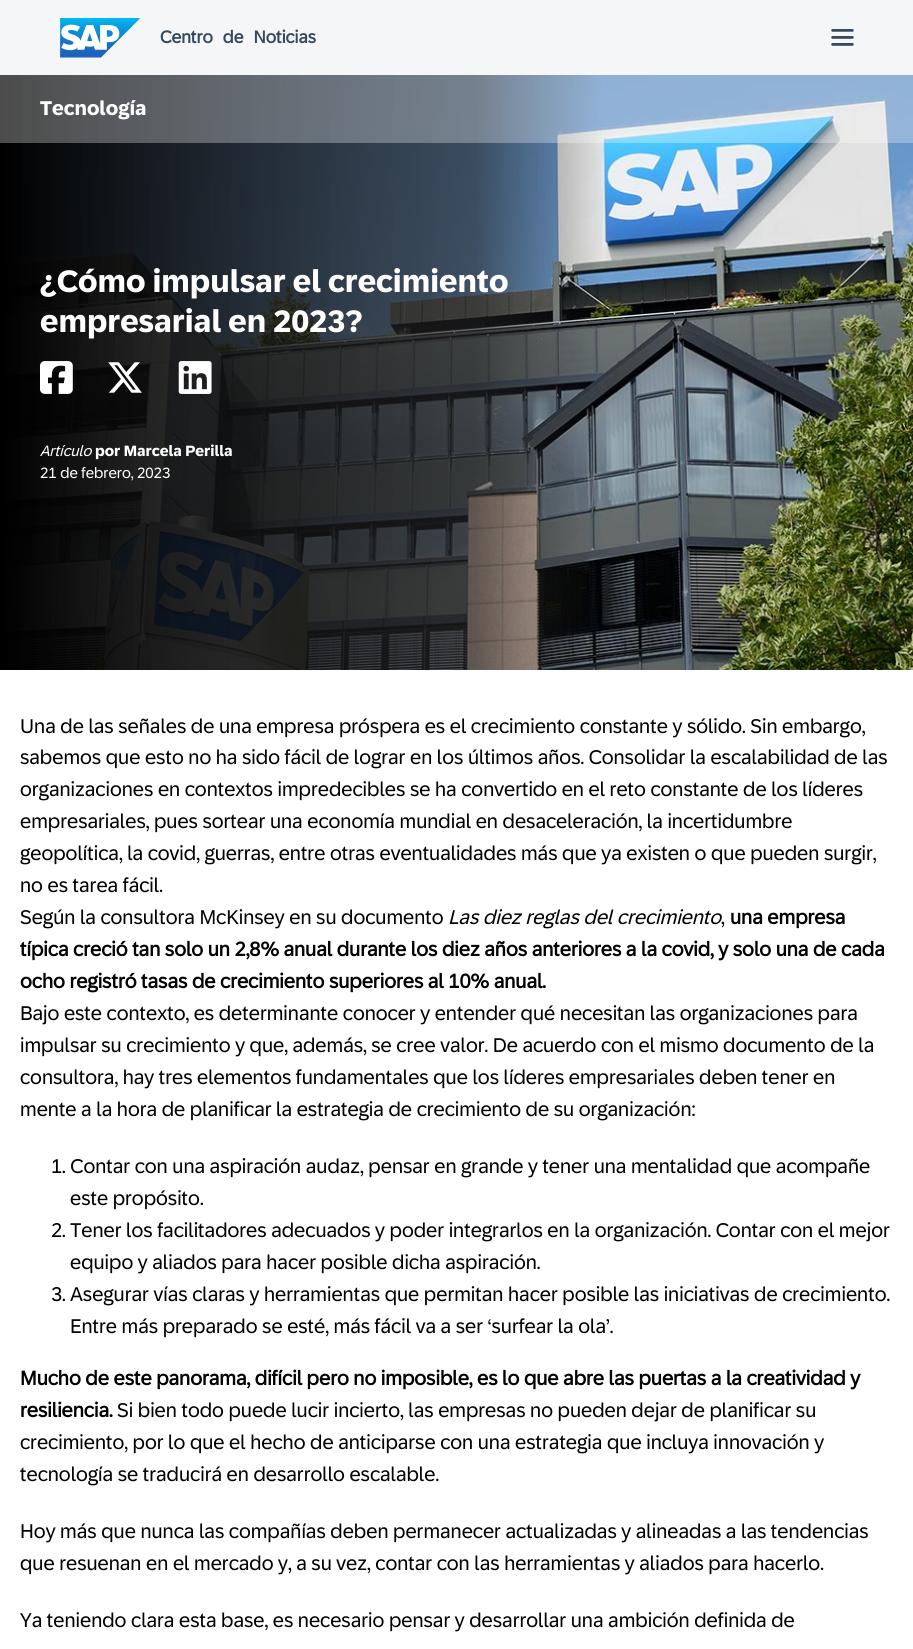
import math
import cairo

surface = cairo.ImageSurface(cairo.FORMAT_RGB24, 913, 1649)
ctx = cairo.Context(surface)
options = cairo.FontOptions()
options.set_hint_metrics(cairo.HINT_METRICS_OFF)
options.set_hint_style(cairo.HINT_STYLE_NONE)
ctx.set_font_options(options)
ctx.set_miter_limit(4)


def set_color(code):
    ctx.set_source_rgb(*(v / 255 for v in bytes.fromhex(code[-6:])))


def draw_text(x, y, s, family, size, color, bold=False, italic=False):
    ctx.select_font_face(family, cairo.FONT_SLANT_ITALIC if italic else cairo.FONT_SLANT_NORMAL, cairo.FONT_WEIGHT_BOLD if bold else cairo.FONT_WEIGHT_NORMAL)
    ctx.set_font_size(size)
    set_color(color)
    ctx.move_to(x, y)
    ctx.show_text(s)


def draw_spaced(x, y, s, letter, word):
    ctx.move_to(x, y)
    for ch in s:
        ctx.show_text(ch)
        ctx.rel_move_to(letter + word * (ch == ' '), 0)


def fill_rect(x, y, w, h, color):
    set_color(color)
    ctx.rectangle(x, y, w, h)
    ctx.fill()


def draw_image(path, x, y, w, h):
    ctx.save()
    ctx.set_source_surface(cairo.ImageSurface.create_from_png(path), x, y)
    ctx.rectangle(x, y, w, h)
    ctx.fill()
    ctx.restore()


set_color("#f5f6f7")
ctx.paint()
draw_image("assets/img1.png", 60, 18, 80, 40)
ctx.select_font_face("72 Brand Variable", cairo.FONT_SLANT_NORMAL, cairo.FONT_WEIGHT_BOLD)
ctx.set_font_size(17.5)
set_color("#354a5f")
draw_spaced(160, 43, "Centro de Noticias", 0, 6)
draw_image("assets/img2.png", 831, 29, 23, 17)
draw_image("assets/img3.png", 0, 75, 913, 595)
ctx.set_source_rgba(1, 1, 1, 0.3)
ctx.rectangle(0, 75, 913, 68)
ctx.fill()
draw_text(40, 115, "Tecnología", "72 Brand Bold", 20, "#ffffff", bold=True)
draw_text(40, 292, "¿Cómo impulsar el crecimiento", "72 Brand Bold", 31.25, "#ffffff", bold=True)
draw_text(40, 332, "empresarial en 2023?", "72 Brand Bold", 31.25, "#ffffff", bold=True)
draw_image("assets/img4.png", 40, 361, 33, 33)
draw_image("assets/img5.png", 108, 362, 34, 31)
draw_image("assets/img6.png", 178, 361, 34, 33)
draw_text(95, 456, "por Marcela Perilla", "72 Brand Bold", 15, "#ffffff", bold=True)
draw_text(40, 478, "21 de febrero, 2023", "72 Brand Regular", 15, "#ffffff")
draw_text(40, 456, "Artículo", "72 Brand Regular", 15, "#ffffff", italic=True)
fill_rect(0, 670, 913, 979, "#ffffff")
draw_text(20, 733, "Una de las señales de una empresa próspera es el crecimiento constante y sólido. Sin embargo,", "72 Brand Regular", 20, "#000000")
draw_text(20, 764, "sabemos que esto no ha sido fácil de lograr en los últimos años. Consolidar la escalabilidad de las", "72 Brand Regular", 20, "#000000")
draw_text(20, 796, "organizaciones en contextos impredecibles se ha convertido en el reto constante de los líderes", "72 Brand Regular", 20, "#000000")
draw_text(20, 828, "empresariales, pues sortear una economía mundial en desaceleración, la incertidumbre", "72 Brand Regular", 20, "#000000")
draw_text(20, 860, "geopolítica, la covid, guerras, entre otras eventualidades más que ya existen o que pueden surgir,", "72 Brand Regular", 20, "#000000")
draw_text(20, 892, "no es tarea fácil.", "72 Brand Regular", 20, "#000000")
draw_text(20, 924, "Según la consultora McKinsey en su documento", "72 Brand Regular", 20, "#000000")
draw_text(448, 924, "Las diez reglas del crecimiento", "72 Brand Regular", 20, "#000000", italic=True)
draw_text(730, 924, "una empresa", "72 Brand Variable", 20, "#000000", bold=True)
draw_text(721, 924, ",", "72 Brand Regular", 20, "#000000")
draw_text(20, 956, "típica creció tan solo un 2,8% anual durante los diez años anteriores a la covid, y solo una de cada", "72 Brand Variable", 20, "#000000", bold=True)
draw_text(20, 988, "ocho registró tasas de crecimiento superiores al 10% anual.", "72 Brand Variable", 20, "#000000", bold=True)
draw_text(20, 1020, "Bajo este contexto, es determinante conocer y entender qué necesitan las organizaciones para", "72 Brand Regular", 20, "#000000")
draw_text(20, 1052, "impulsar su crecimiento y que, además, se cree valor. De acuerdo con el mismo documento de la", "72 Brand Regular", 20, "#000000")
draw_text(20, 1084, "consultora, hay tres elementos fundamentales que los líderes empresariales deben tener en", "72 Brand Regular", 20, "#000000")
draw_text(20, 1116, "mente a la hora de planificar la estrategia de crecimiento de su organización:", "72 Brand Regular", 20, "#000000")
draw_text(51, 1173, "1. Contar con una aspiración audaz, pensar en grande y tener una mentalidad que acompañe", "72 Brand Regular", 20, "#000000")
draw_text(70, 1205, "este propósito.", "72 Brand Regular", 20, "#000000")
draw_text(51, 1237, "2. Tener los facilitadores adecuados y poder integrarlos en la organización. Contar con el mejor", "72 Brand Regular", 20, "#000000")
draw_text(70, 1269, "equipo y aliados para hacer posible dicha aspiración.", "72 Brand Regular", 20, "#000000")
draw_text(51, 1301, "3. Asegurar vías claras y herramientas que permitan hacer posible las iniciativas de crecimiento.", "72 Brand Regular", 20, "#000000")
draw_text(70, 1333, "Entre más preparado se esté, más fácil va a ser ‘surfear la ola’.", "72 Brand Regular", 20, "#000000")
draw_text(20, 1385, "Mucho de este panorama, difícil pero no imposible, es lo que abre las puertas a la creatividad y", "72 Brand Variable", 20, "#000000", bold=True)
draw_text(20, 1417, "resiliencia.", "72 Brand Variable", 20, "#000000", bold=True)
draw_text(117, 1417, "Si bien todo puede lucir incierto, las empresas no pueden dejar de planificar su", "72 Brand Regular", 20, "#000000")
draw_text(20, 1449, "crecimiento, por lo que el hecho de anticiparse con una estrategia que incluya innovación y", "72 Brand Regular", 20, "#000000")
draw_text(20, 1481, "tecnología se traducirá en desarrollo escalable.", "72 Brand Regular", 20, "#000000")
draw_text(20, 1538, "Hoy más que nunca las compañías deben permanecer actualizadas y alineadas a las tendencias", "72 Brand Regular", 20, "#000000")
draw_text(20, 1570, "que resuenan en el mercado y, a su vez, contar con las herramientas y aliados para hacerlo.", "72 Brand Regular", 20, "#000000")
draw_text(20, 1627, "Ya teniendo clara esta base, es necesario pensar y desarrollar una ambición definida de", "72 Brand Regular", 20, "#000000")
surface.write_to_png("output.png")
